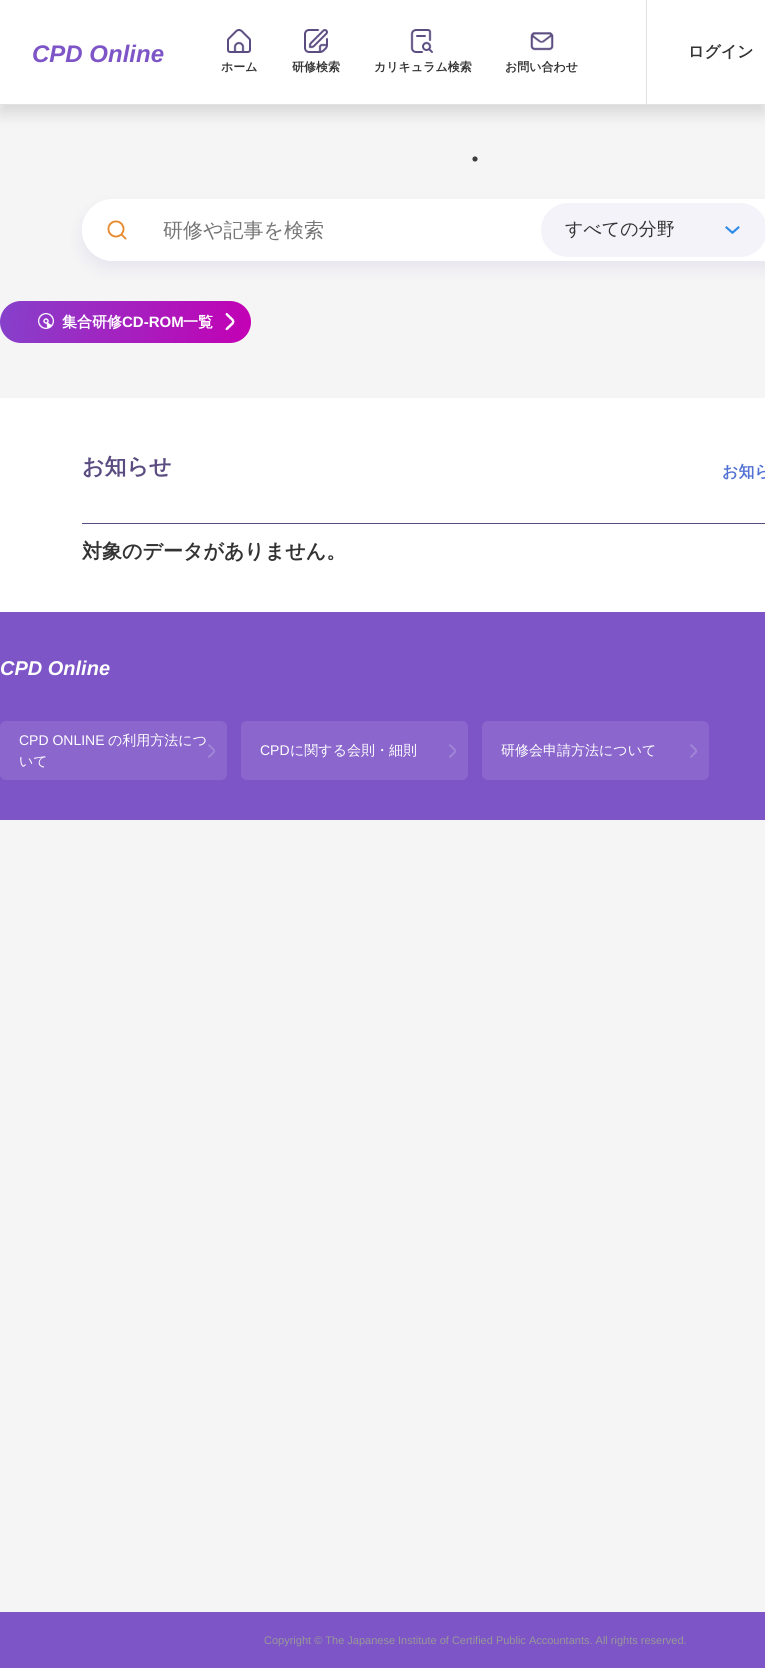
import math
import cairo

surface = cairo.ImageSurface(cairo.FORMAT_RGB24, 765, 1668)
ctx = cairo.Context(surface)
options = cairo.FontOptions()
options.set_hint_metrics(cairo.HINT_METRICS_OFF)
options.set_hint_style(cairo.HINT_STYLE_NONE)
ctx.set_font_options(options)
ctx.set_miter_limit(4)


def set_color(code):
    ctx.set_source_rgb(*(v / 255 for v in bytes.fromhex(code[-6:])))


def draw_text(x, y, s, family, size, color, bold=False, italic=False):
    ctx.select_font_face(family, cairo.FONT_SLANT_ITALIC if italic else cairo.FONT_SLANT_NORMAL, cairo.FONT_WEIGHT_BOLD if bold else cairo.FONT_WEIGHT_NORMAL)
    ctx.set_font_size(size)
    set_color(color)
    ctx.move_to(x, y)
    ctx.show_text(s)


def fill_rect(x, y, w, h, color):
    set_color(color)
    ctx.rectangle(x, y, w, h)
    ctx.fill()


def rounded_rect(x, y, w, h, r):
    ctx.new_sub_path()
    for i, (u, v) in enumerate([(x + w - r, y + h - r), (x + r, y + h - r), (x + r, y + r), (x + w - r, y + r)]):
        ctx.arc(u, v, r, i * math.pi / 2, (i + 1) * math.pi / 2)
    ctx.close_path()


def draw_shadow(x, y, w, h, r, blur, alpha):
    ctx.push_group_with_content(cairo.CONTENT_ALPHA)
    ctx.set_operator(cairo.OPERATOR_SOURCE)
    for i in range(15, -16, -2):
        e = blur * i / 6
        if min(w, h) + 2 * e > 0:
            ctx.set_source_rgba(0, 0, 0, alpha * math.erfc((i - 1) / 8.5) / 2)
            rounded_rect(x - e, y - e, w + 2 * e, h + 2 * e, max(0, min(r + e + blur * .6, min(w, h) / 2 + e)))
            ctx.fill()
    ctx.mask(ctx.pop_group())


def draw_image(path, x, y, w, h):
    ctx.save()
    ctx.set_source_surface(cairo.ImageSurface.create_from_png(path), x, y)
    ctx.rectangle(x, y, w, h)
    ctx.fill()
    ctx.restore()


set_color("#f5f5f5")
ctx.paint()
set_color("#333333")
draw_shadow(0, 8, 765, 105, 0, 8, 0.16)
fill_rect(0, 0, 765, 104, "#ffffff")
fill_rect(0, 104, 765, 1, "#e2e2e2")
draw_text(32, 62, "CPD Online", "Liberation Sans", 24, "#7d55c7", bold=True, italic=True)
fill_rect(646, 0, 1, 104, "#e2e2e2")
draw_text(688, 57, "ログイン", "WenQuanYi Zen Hei", 16, "#333333", bold=True)
draw_image("assets/img1.png", 227, 29, 24, 24)
draw_text(221, 71, "ホーム", "WenQuanYi Zen Hei", 12, "#333333", bold=True)
draw_image("assets/img2.png", 304, 29, 24, 24)
draw_text(292, 71, "研修検索", "WenQuanYi Zen Hei", 12, "#333333", bold=True)
draw_image("assets/img3.png", 410, 29, 24, 24)
draw_text(374, 71, "カリキュラム検索", "WenQuanYi Zen Hei", 12, "#333333", bold=True)
draw_image("assets/img4.png", 530, 32, 24, 19)
draw_text(505, 71, "お問い合わせ", "WenQuanYi Zen Hei", 12, "#333333", bold=True)
draw_image("assets/img5.png", 472, 156, 6, 6)
set_color("#9f8fcc")
draw_shadow(82, 207, 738, 62, 31, 8, 0.16)
set_color("#ffffff")
rounded_rect(82, 199, 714, 62, 31)
ctx.fill()
rounded_rect(82, 199, 681, 62, 31)
ctx.fill()
draw_image("assets/img6.png", 107, 220, 20, 20)
draw_text(163, 237, "研修や記事を検索", "WenQuanYi Zen Hei Medium", 20, "#757575")
set_color("#f5f3fa")
rounded_rect(541, 203, 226, 54, 27)
ctx.fill()
draw_text(565, 235, "すべての分野", "WenQuanYi Zen Hei Medium", 18, "#333333")
draw_image("assets/img7.png", 725, 226, 15, 8)
gradient = cairo.LinearGradient(-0.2, 302, 251, 342)
gradient.add_color_stop_rgba(0, 0.525, 0.255, 0.796, 1)
gradient.add_color_stop_rgba(1, 0.765, 0, 0.706, 1)
ctx.set_source(gradient)
rounded_rect(0, 301, 251, 42, 21)
ctx.fill()
draw_image("assets/img8.png", 38, 313, 16, 16)
draw_text(62, 327, "集合研修", "WenQuanYi Zen Hei", 15, "#ffffff", bold=True)
draw_text(122, 327, "CD-ROM", "Liberation Sans", 15, "#ffffff", bold=True)
draw_text(183, 327, "一覧", "WenQuanYi Zen Hei", 15, "#ffffff", bold=True)
draw_image("assets/img9.png", 225, 312, 10, 19)
fill_rect(0, 398, 765, 214, "#ffffff")
fill_rect(82, 523, 683, 1, "#5a4c80")
draw_text(82, 474, "お知らせ", "WenQuanYi Zen Hei", 22, "#5a4c80", bold=True)
draw_text(722, 477, "お知ら", "WenQuanYi Zen Hei", 16, "#5272d3", bold=True)
draw_text(82, 558, "対象のデータがありません。", "WenQuanYi Zen Hei", 20, "#333333", bold=True)
fill_rect(0, 612, 765, 208, "#7d55c7")
draw_text(0, 675, "CPD Online", "Liberation Sans", 20, "#ffffff", bold=True, italic=True)
set_color("#8a66cd")
rounded_rect(0, 721, 227, 59, 6)
ctx.fill()
draw_text(19, 745, "CPD ONLINE", "Liberation Sans", 14, "#ffffff")
draw_text(108, 745, "の利用方法につ", "WenQuanYi Zen Hei Medium", 14, "#ffffff")
draw_image("assets/img10.png", 208, 744, 8, 14)
draw_text(19, 766, "いて", "WenQuanYi Zen Hei Medium", 14, "#ffffff")
set_color("#8a66cd")
rounded_rect(241, 721, 227, 59, 6)
ctx.fill()
draw_text(260, 755, "CPD", "Liberation Sans", 14, "#ffffff")
draw_text(290, 755, "に関する会則・細則", "WenQuanYi Zen Hei Medium", 14, "#ffffff")
draw_image("assets/img10.png", 449, 744, 8, 14)
set_color("#8a66cd")
rounded_rect(482, 721, 227, 59, 6)
ctx.fill()
draw_text(501, 755, "研修会申請方法について", "WenQuanYi Zen Hei Medium", 14, "#ffffff")
draw_image("assets/img10.png", 690, 744, 8, 14)
fill_rect(0, 1612, 765, 56, "#7d55c7")
draw_text(264, 1644, "Copyright © The Japanese Institute of Certified Public Accountants. All rights reserved.", "Liberation Sans", 11, "#989898")
surface.write_to_png("output.png")
